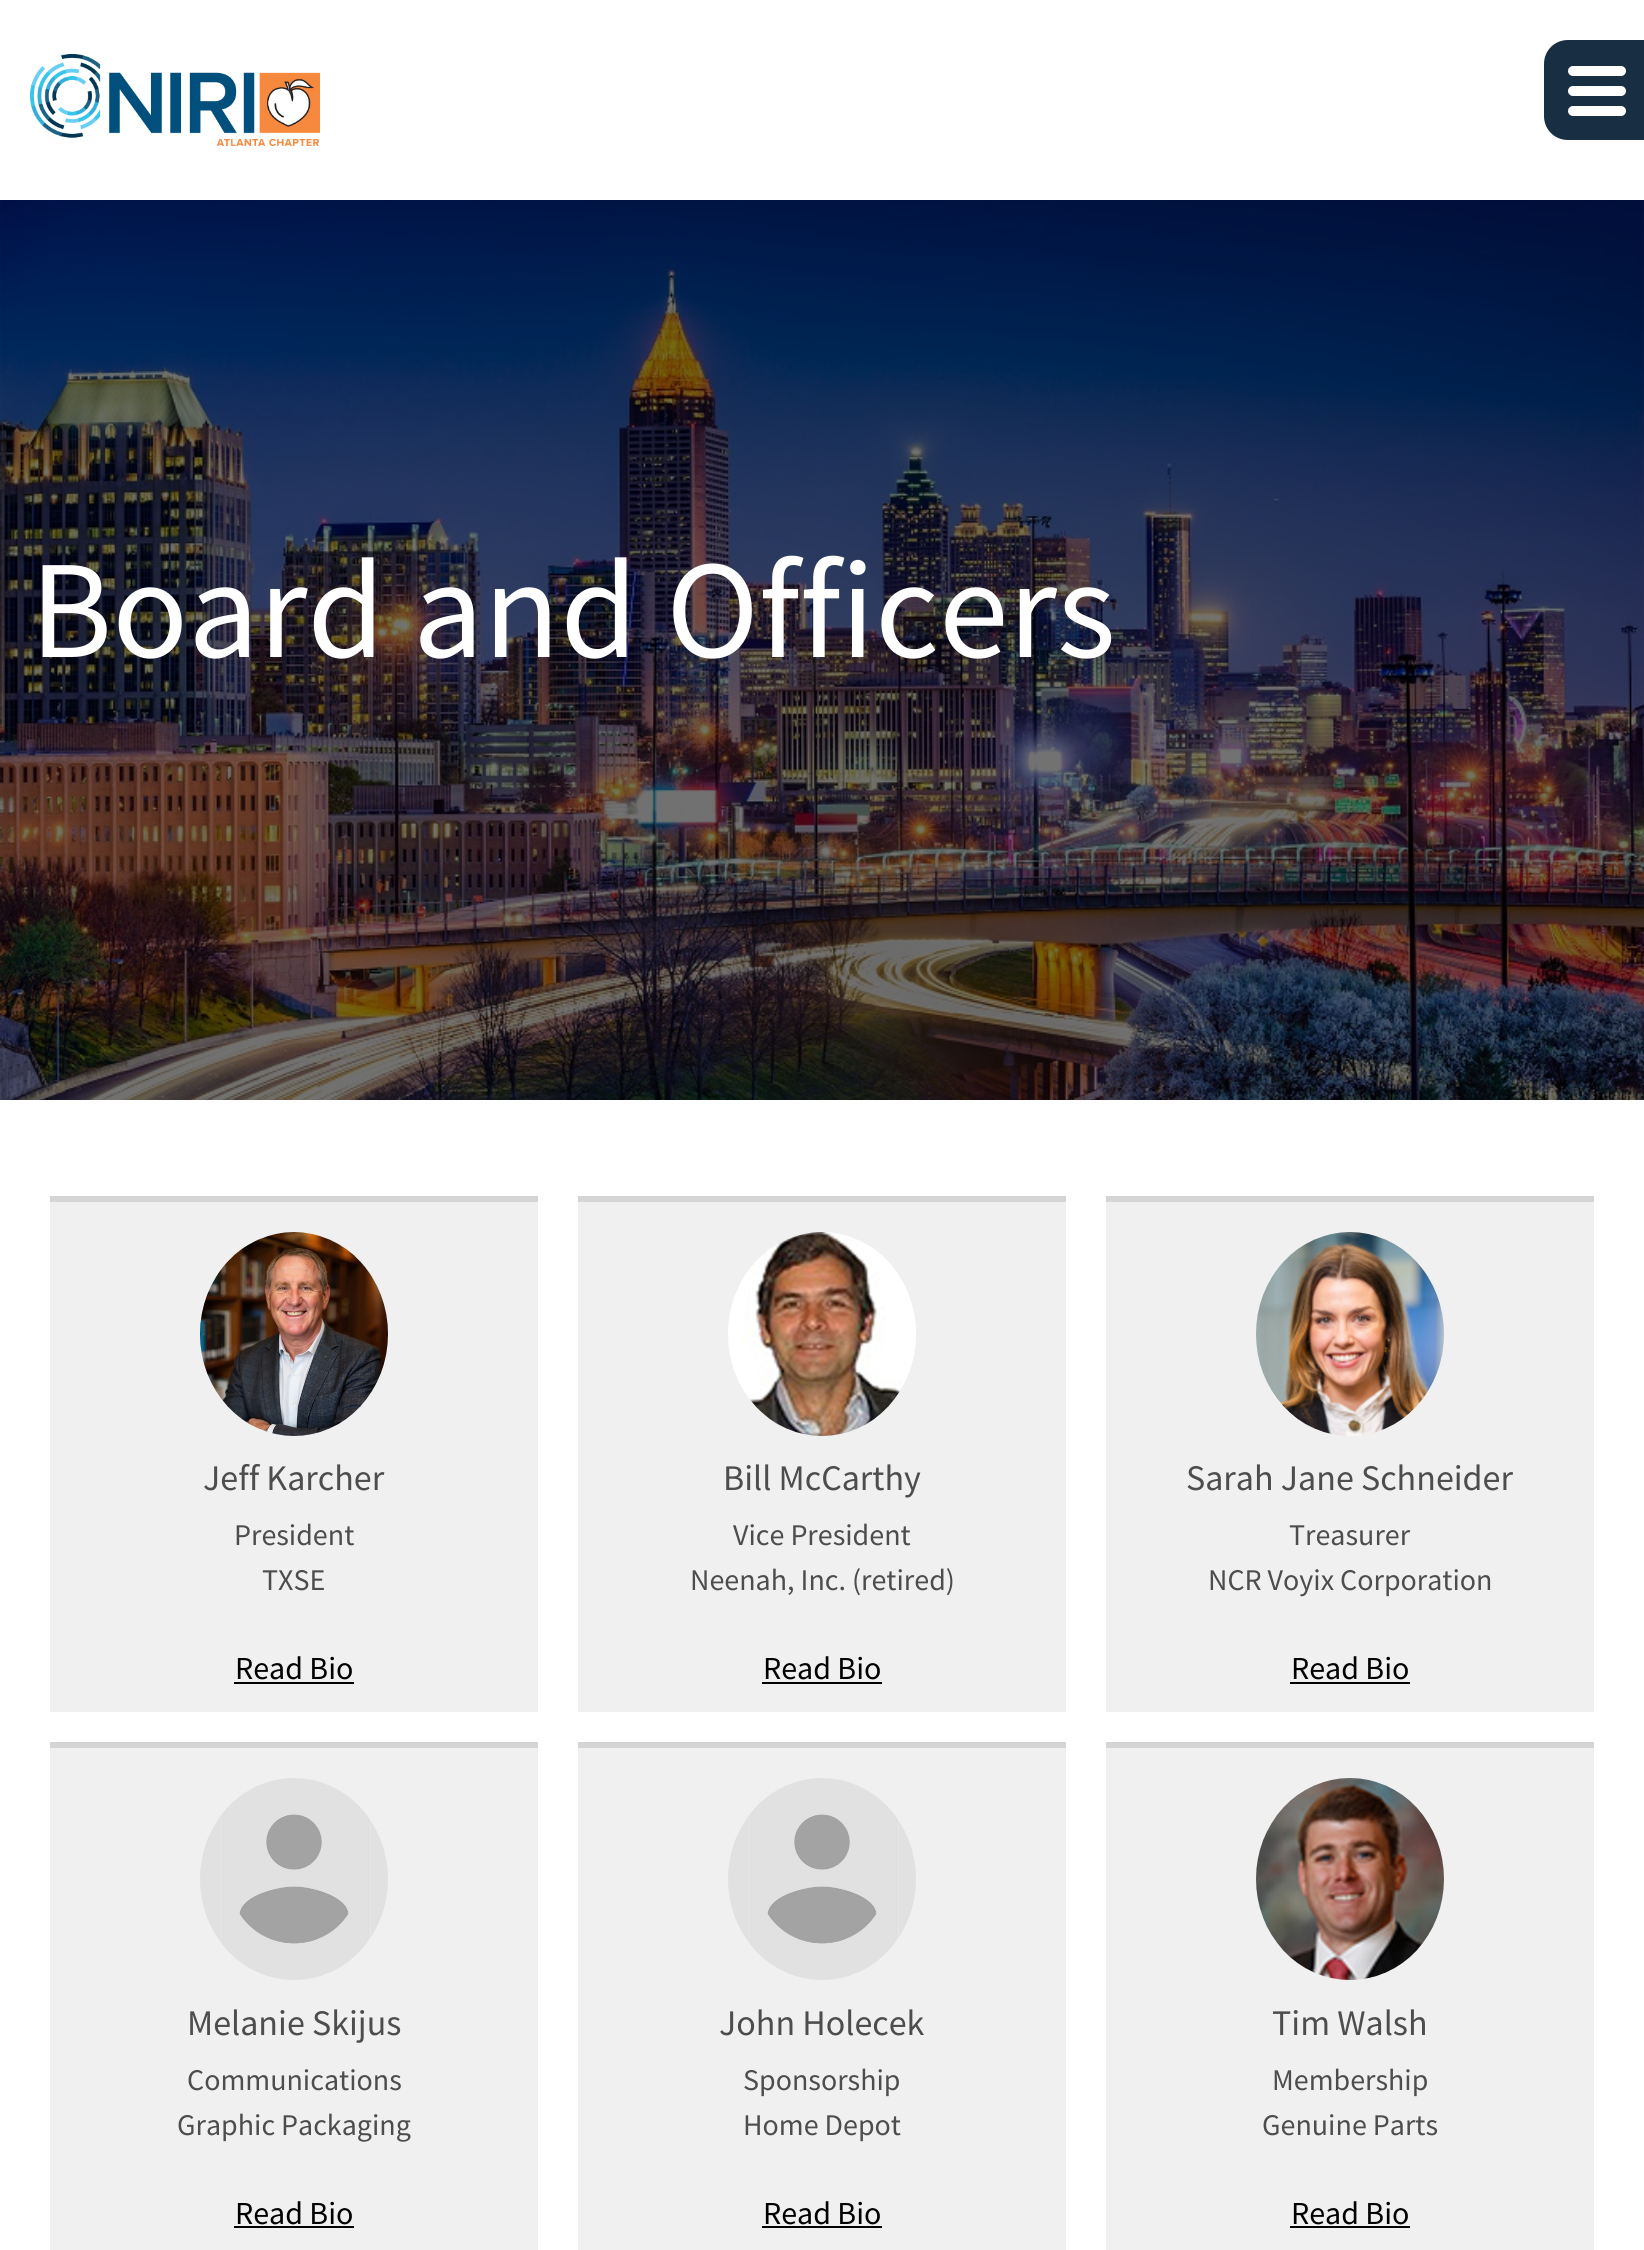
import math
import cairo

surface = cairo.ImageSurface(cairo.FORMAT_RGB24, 1644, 2250)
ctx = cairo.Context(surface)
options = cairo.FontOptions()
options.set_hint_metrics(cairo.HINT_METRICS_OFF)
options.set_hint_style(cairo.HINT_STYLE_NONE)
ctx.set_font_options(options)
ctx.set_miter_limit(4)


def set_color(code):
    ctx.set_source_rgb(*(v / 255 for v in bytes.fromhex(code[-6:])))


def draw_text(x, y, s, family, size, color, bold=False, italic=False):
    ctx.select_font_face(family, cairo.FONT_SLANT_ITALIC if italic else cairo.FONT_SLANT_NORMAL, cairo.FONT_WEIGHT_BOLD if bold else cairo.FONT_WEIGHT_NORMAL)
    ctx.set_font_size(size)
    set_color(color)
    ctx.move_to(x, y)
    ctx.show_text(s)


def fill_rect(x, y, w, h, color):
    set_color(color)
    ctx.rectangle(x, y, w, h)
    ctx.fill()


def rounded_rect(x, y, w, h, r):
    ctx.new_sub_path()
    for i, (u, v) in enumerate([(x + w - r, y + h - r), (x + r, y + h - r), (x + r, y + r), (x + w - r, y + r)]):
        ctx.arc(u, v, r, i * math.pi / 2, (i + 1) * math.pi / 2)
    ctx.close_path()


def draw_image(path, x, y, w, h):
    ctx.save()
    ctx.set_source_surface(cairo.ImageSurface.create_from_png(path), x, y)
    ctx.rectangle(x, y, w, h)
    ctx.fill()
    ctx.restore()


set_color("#ffffff")
ctx.paint()
draw_image("assets/img1.png", 30, 54, 290, 92)
set_color("#182e43")
ctx.new_path()
ctx.move_to(1568, 40)
ctx.line_to(1644, 40)
ctx.line_to(1644, 140)
ctx.line_to(1568, 140)
ctx.curve_to(1554.5, 140, 1544, 129.5, 1544, 116)
ctx.line_to(1544, 64)
ctx.curve_to(1544, 50.5, 1554.5, 40, 1568, 40)
ctx.close_path()
ctx.fill()
set_color("#ffffff")
rounded_rect(1568, 66, 58, 10, 5)
ctx.fill()
rounded_rect(1568, 86, 58, 10, 5)
ctx.fill()
rounded_rect(1568, 106, 58, 10, 5)
ctx.fill()
draw_image("assets/img2.png", 0, 200, 1644, 900)
draw_text(30, 657, "Board and Officers", "Source Sans Pro", 140, "#ffffff")
fill_rect(50, 1202, 488, 510, "#f0f0f0")
fill_rect(50, 1196, 488, 6, "#d5d5d5")
draw_image("assets/img3.png", 200, 1232, 188, 204)
draw_text(203, 1490, "Jeff Karcher", "Source Sans Pro", 36, "#4d4d4d")
draw_text(234, 1545, "President", "Source Sans Pro", 30, "#4d4d4d")
draw_text(262, 1590, "TXSE", "Source Sans Pro", 30, "#4d4d4d")
draw_text(235, 1679, "Read Bio", "Source Sans Pro", 32, "#000000")
fill_rect(234, 1682, 120, 2, "#000000")
fill_rect(578, 1202, 488, 510, "#f0f0f0")
fill_rect(578, 1196, 488, 6, "#d5d5d5")
draw_image("assets/img4.png", 728, 1232, 188, 204)
draw_text(723, 1490, "Bill McCarthy", "Source Sans Pro", 36, "#4d4d4d")
draw_text(733, 1545, "Vice President", "Source Sans Pro", 30, "#4d4d4d")
draw_text(690, 1590, "Neenah, Inc. (retired)", "Source Sans Pro", 30, "#4d4d4d")
draw_text(763, 1679, "Read Bio", "Source Sans Pro", 32, "#000000")
fill_rect(762, 1682, 120, 2, "#000000")
fill_rect(1106, 1202, 488, 510, "#f0f0f0")
fill_rect(1106, 1196, 488, 6, "#d5d5d5")
draw_image("assets/img5.png", 1256, 1232, 188, 204)
draw_text(1186, 1490, "Sarah Jane Schneider", "Source Sans Pro", 36, "#4d4d4d")
draw_text(1289, 1545, "Treasurer", "Source Sans Pro", 30, "#4d4d4d")
draw_text(1208, 1590, "NCR Voyix Corporation", "Source Sans Pro", 30, "#4d4d4d")
draw_text(1291, 1679, "Read Bio", "Source Sans Pro", 32, "#000000")
fill_rect(1290, 1682, 120, 2, "#000000")
fill_rect(50, 1748, 488, 502, "#f0f0f0")
fill_rect(50, 1742, 488, 6, "#d5d5d5")
draw_image("assets/img6.png", 200, 1778, 188, 202)
draw_text(187, 2035, "Melanie Skijus", "Source Sans Pro", 36, "#4d4d4d")
draw_text(187, 2090, "Communications", "Source Sans Pro", 30, "#4d4d4d")
draw_text(177, 2135, "Graphic Packaging", "Source Sans Pro", 30, "#4d4d4d")
draw_text(235, 2224, "Read Bio", "Source Sans Pro", 32, "#000000")
fill_rect(234, 2226, 120, 2, "#000000")
fill_rect(578, 1748, 488, 502, "#f0f0f0")
fill_rect(578, 1742, 488, 6, "#d5d5d5")
draw_image("assets/img7.png", 728, 1778, 188, 202)
draw_text(719, 2035, "John Holecek", "Source Sans Pro", 36, "#4d4d4d")
draw_text(743, 2090, "Sponsorship", "Source Sans Pro", 30, "#4d4d4d")
draw_text(743, 2135, "Home Depot", "Source Sans Pro", 30, "#4d4d4d")
draw_text(763, 2224, "Read Bio", "Source Sans Pro", 32, "#000000")
fill_rect(762, 2226, 120, 2, "#000000")
fill_rect(1106, 1748, 488, 502, "#f0f0f0")
fill_rect(1106, 1742, 488, 6, "#d5d5d5")
draw_image("assets/img8.png", 1256, 1778, 188, 202)
draw_text(1272, 2035, "Tim Walsh", "Source Sans Pro", 36, "#4d4d4d")
draw_text(1272, 2090, "Membership", "Source Sans Pro", 30, "#4d4d4d")
draw_text(1262, 2135, "Genuine Parts", "Source Sans Pro", 30, "#4d4d4d")
draw_text(1291, 2224, "Read Bio", "Source Sans Pro", 32, "#000000")
fill_rect(1290, 2226, 120, 2, "#000000")
surface.write_to_png("output.png")
